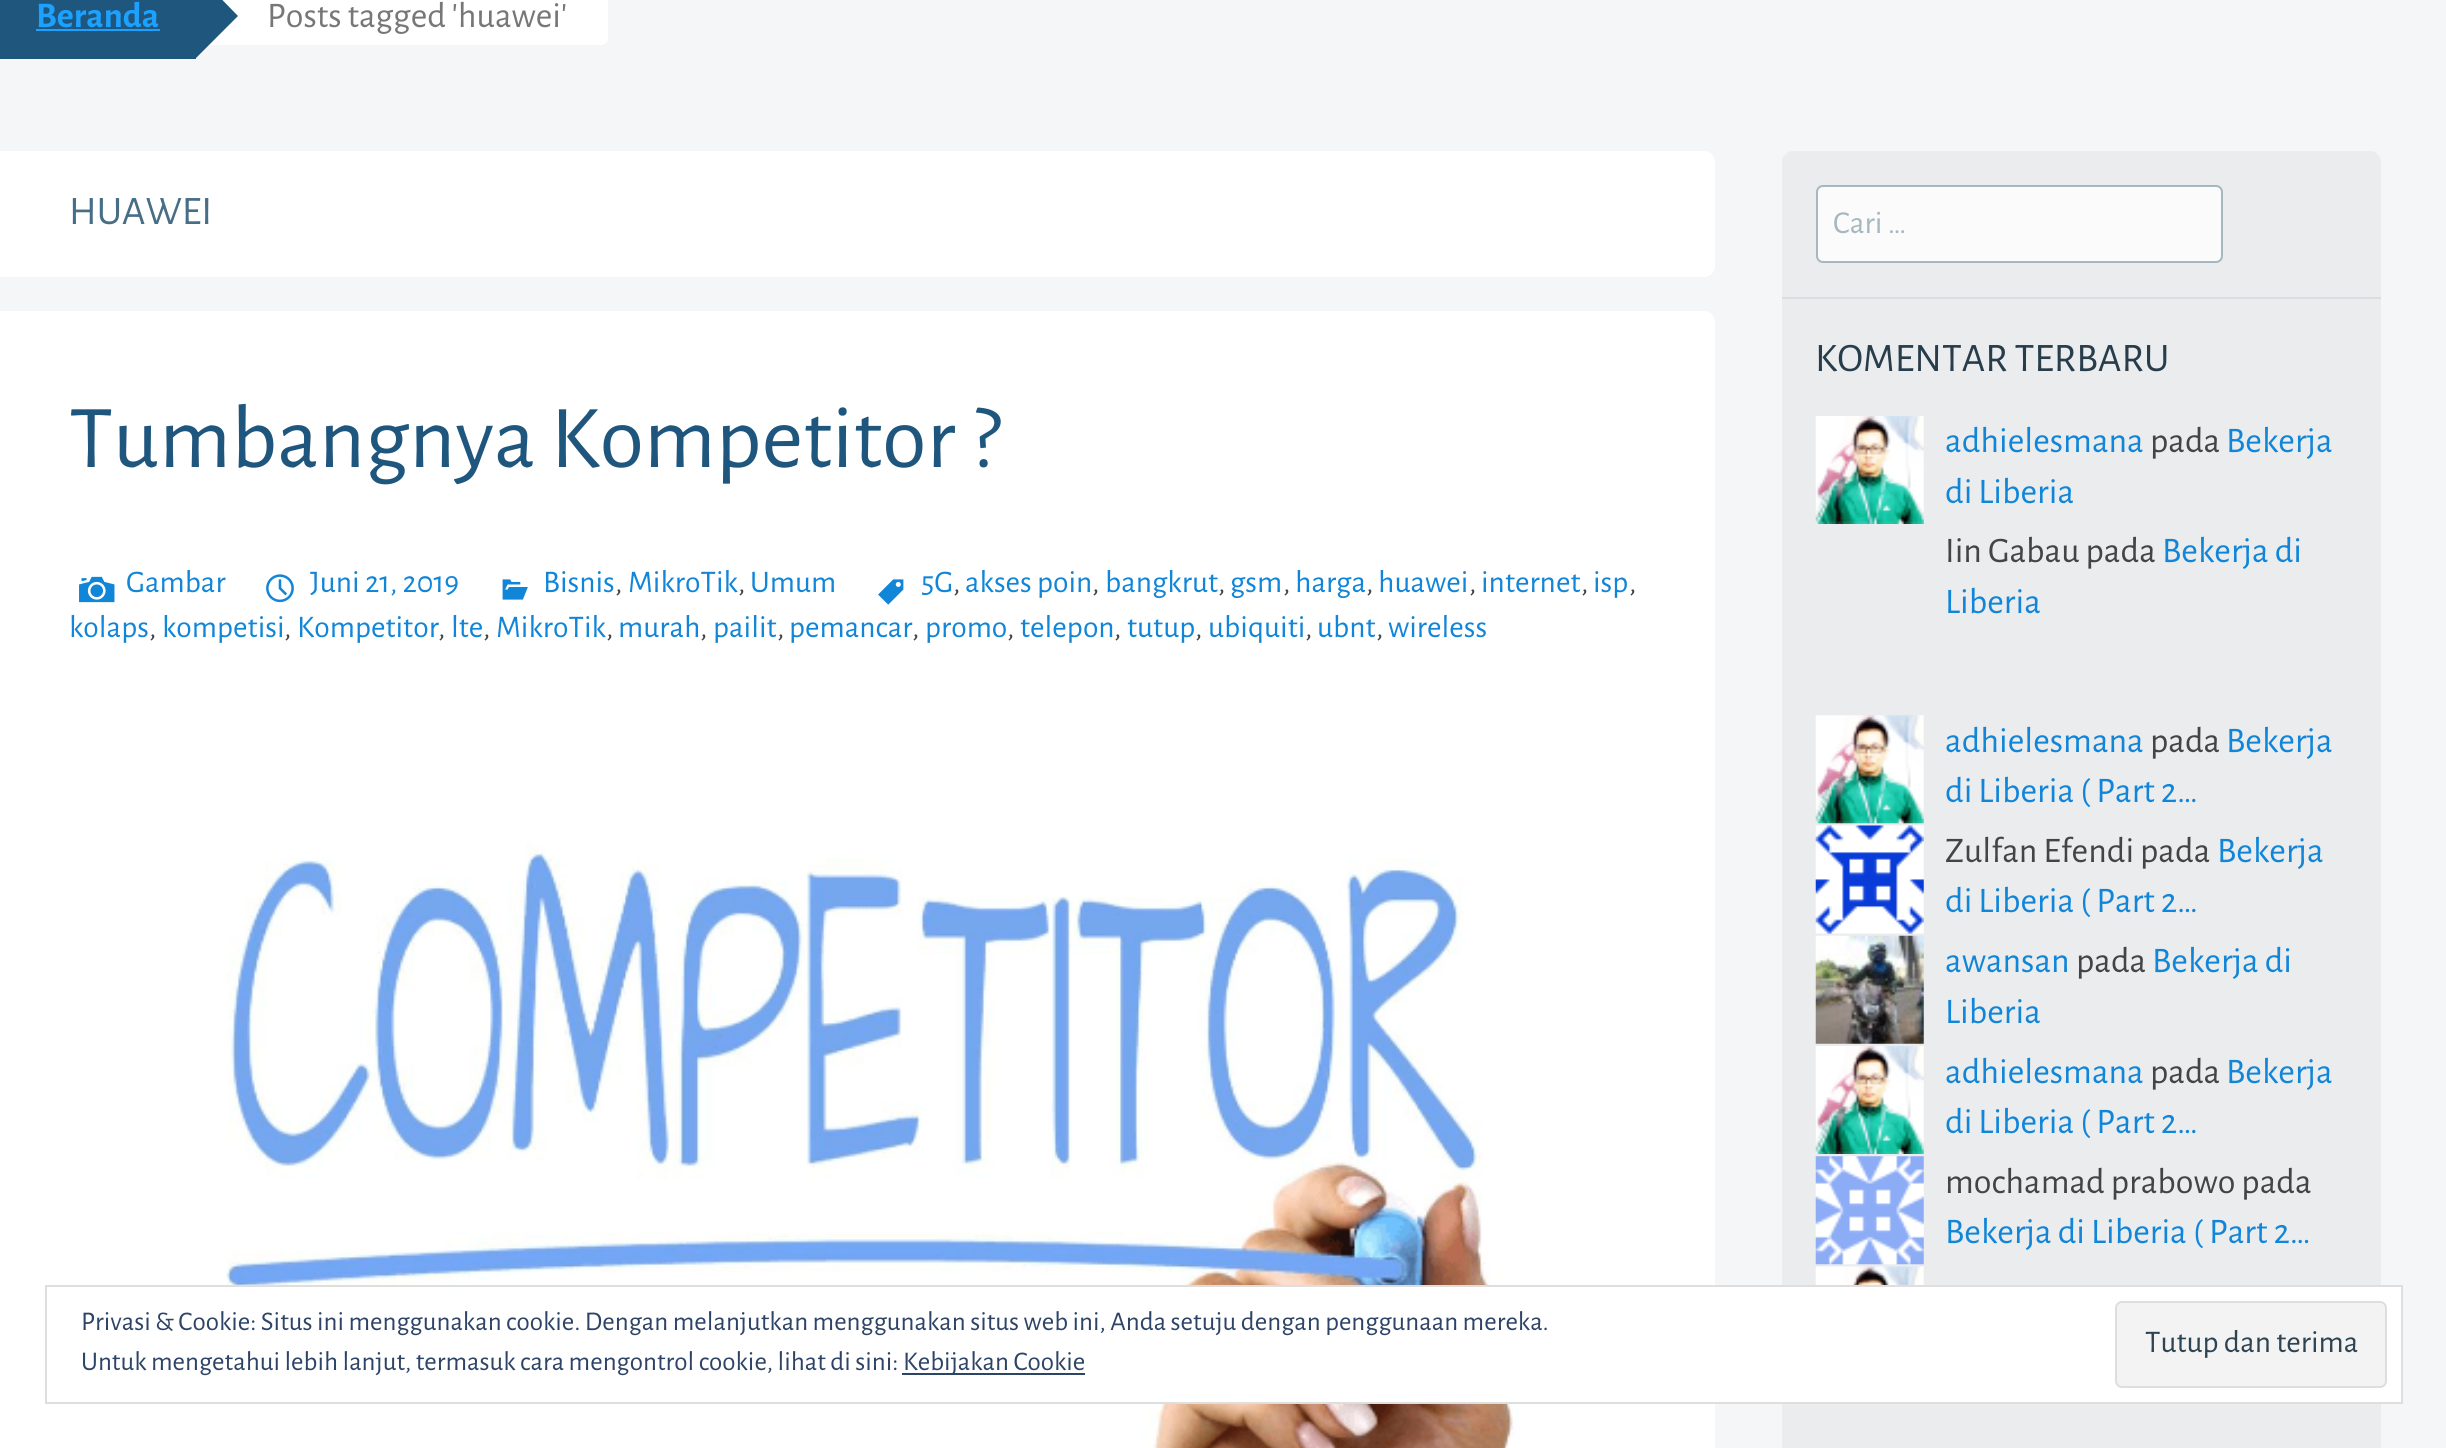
import math
import cairo

surface = cairo.ImageSurface(cairo.FORMAT_RGB24, 2446, 1448)
ctx = cairo.Context(surface)
options = cairo.FontOptions()
options.set_hint_metrics(cairo.HINT_METRICS_OFF)
options.set_hint_style(cairo.HINT_STYLE_NONE)
ctx.set_font_options(options)
ctx.set_miter_limit(4)


def set_color(code):
    ctx.set_source_rgb(*(v / 255 for v in bytes.fromhex(code[-6:])))


def draw_text(x, y, s, family, size, color, bold=False, italic=False):
    ctx.select_font_face(family, cairo.FONT_SLANT_ITALIC if italic else cairo.FONT_SLANT_NORMAL, cairo.FONT_WEIGHT_BOLD if bold else cairo.FONT_WEIGHT_NORMAL)
    ctx.set_font_size(size)
    set_color(color)
    ctx.move_to(x, y)
    ctx.show_text(s)


def fill_rect(x, y, w, h, color):
    set_color(color)
    ctx.rectangle(x, y, w, h)
    ctx.fill()


def rounded_rect(x, y, w, h, r):
    ctx.new_sub_path()
    for i, (u, v) in enumerate([(x + w - r, y + h - r), (x + r, y + h - r), (x + r, y + r), (x + w - r, y + r)]):
        ctx.arc(u, v, r, i * math.pi / 2, (i + 1) * math.pi / 2)
    ctx.close_path()


def draw_image(path, x, y, w, h):
    ctx.save()
    ctx.set_source_surface(cairo.ImageSurface.create_from_png(path), x, y)
    ctx.rectangle(x, y, w, h)
    ctx.fill()
    ctx.restore()


set_color("#f5f6f7")
ctx.paint()
fill_rect(0, 0, 196, 59, "#1f567d")
draw_text(36, 27, "Beranda", "Alegreya Sans", 36, "#1da1ff", bold=True)
fill_rect(36, 29, 124, 2, "#1da1ff")
fill_rect(209, 0, 59, 45, "#ffffff")
set_color("#1f567d")
ctx.new_path()
ctx.move_to(196, 58)
ctx.line_to(196, -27)
ctx.line_to(238, 16)
ctx.close_path()
ctx.fill()
set_color("#ffffff")
ctx.new_path()
ctx.move_to(268, -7)
ctx.line_to(601, -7)
ctx.curve_to(605, -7, 608, -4, 608, 0)
ctx.line_to(608, 38)
ctx.curve_to(608, 42, 605, 45, 601, 45)
ctx.line_to(268, 45)
ctx.close_path()
ctx.fill()
draw_text(267, 27, "Posts tagged 'huawei'", "Alegreya Sans", 36, "#777777")
set_color("#ffffff")
ctx.new_path()
ctx.move_to(0, 151)
ctx.line_to(1704, 151)
ctx.curve_to(1710, 151, 1715, 156, 1715, 162)
ctx.line_to(1715, 266)
ctx.curve_to(1715, 272, 1710, 277, 1704, 277)
ctx.line_to(0, 277)
ctx.close_path()
ctx.fill()
draw_text(69, 224, "HUAWEI", "Alegreya Sans", 40.5, "#486d87")
set_color("#ffffff")
ctx.new_path()
ctx.move_to(0, 311)
ctx.line_to(1704, 311)
ctx.curve_to(1710, 311, 1715, 316, 1715, 322)
ctx.line_to(1715, 1448)
ctx.curve_to(1715, 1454, 1710, 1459, 1704, 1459)
ctx.line_to(0, 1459)
ctx.close_path()
ctx.fill()
draw_text(69, 467, "Tumbangnya Kompetitor ?", "Alegreya Sans", 90, "#1f567d")
draw_image("assets/img1.png", 878, 579, 26, 26)
draw_text(921, 592, "5G", "Alegreya Sans", 31.5, "#1185d7")
draw_text(953, 592, ",", "Alegreya Sans", 31.5, "#444444")
draw_text(965, 592, "akses poin", "Alegreya Sans", 31.5, "#1185d7")
draw_text(1092, 592, ",", "Alegreya Sans", 31.5, "#444444")
draw_text(1105, 592, "bangkrut", "Alegreya Sans", 31.5, "#1185d7")
draw_text(1218, 592, ",", "Alegreya Sans", 31.5, "#444444")
draw_text(1230, 592, "gsm", "Alegreya Sans", 31.5, "#1185d7")
draw_text(1283, 592, ",", "Alegreya Sans", 31.5, "#444444")
draw_text(1295, 592, "harga", "Alegreya Sans", 31.5, "#1185d7")
draw_text(1366, 592, ",", "Alegreya Sans", 31.5, "#444444")
draw_text(1378, 592, "huawei", "Alegreya Sans", 31.5, "#1185d7")
draw_text(1469, 592, ",", "Alegreya Sans", 31.5, "#444444")
draw_text(1481, 592, "internet", "Alegreya Sans", 31.5, "#1185d7")
draw_text(1581, 592, ",", "Alegreya Sans", 31.5, "#444444")
draw_text(1593, 592, "isp", "Alegreya Sans", 31.5, "#1185d7")
draw_text(1629, 592, ",", "Alegreya Sans", 31.5, "#444444")
draw_text(69, 637, "kolaps", "Alegreya Sans", 31.5, "#1185d7")
draw_text(149, 637, ",", "Alegreya Sans", 31.5, "#444444")
draw_text(162, 637, "kompetisi", "Alegreya Sans", 31.5, "#1185d7")
draw_text(284, 637, ",", "Alegreya Sans", 31.5, "#444444")
draw_text(297, 637, "Kompetitor", "Alegreya Sans", 31.5, "#1185d7")
draw_text(438, 637, ",", "Alegreya Sans", 31.5, "#444444")
draw_text(451, 637, "lte", "Alegreya Sans", 31.5, "#1185d7")
draw_text(483, 637, ",", "Alegreya Sans", 31.5, "#444444")
draw_text(496, 637, "MikroTik", "Alegreya Sans", 31.5, "#1185d7")
draw_text(606, 637, ",", "Alegreya Sans", 31.5, "#444444")
draw_text(618, 637, "murah", "Alegreya Sans", 31.5, "#1185d7")
draw_text(700, 637, ",", "Alegreya Sans", 31.5, "#444444")
draw_text(713, 637, "pailit", "Alegreya Sans", 31.5, "#1185d7")
draw_text(777, 637, ",", "Alegreya Sans", 31.5, "#444444")
draw_text(789, 637, "pemancar", "Alegreya Sans", 31.5, "#1185d7")
draw_text(912, 637, ",", "Alegreya Sans", 31.5, "#444444")
draw_text(925, 637, "promo", "Alegreya Sans", 31.5, "#1185d7")
draw_text(1007, 637, ",", "Alegreya Sans", 31.5, "#444444")
draw_text(1020, 637, "telepon", "Alegreya Sans", 31.5, "#1185d7")
draw_text(1114, 637, ",", "Alegreya Sans", 31.5, "#444444")
draw_text(1127, 637, "tutup", "Alegreya Sans", 31.5, "#1185d7")
draw_text(1195, 637, ",", "Alegreya Sans", 31.5, "#444444")
draw_text(1208, 637, "ubiquiti", "Alegreya Sans", 31.5, "#1185d7")
draw_text(1305, 637, ",", "Alegreya Sans", 31.5, "#444444")
draw_text(1317, 637, "ubnt", "Alegreya Sans", 31.5, "#1185d7")
draw_text(1376, 637, ",", "Alegreya Sans", 31.5, "#444444")
draw_text(1388, 637, "wireless", "Alegreya Sans", 31.5, "#1185d7")
draw_image("assets/img2.png", 79, 576, 36, 27)
draw_text(126, 592, "Gambar", "Alegreya Sans", 31.5, "#1185d7")
draw_image("assets/img3.png", 266, 574, 28, 29)
draw_text(310, 592, "Juni 21, 2019", "Alegreya Sans", 31.5, "#1185d7")
draw_image("assets/img4.png", 502, 579, 26, 21)
draw_text(543, 592, "Bisnis", "Alegreya Sans", 31.5, "#1185d7")
draw_text(615, 592, ",", "Alegreya Sans", 31.5, "#444444")
draw_text(628, 592, "MikroTik", "Alegreya Sans", 31.5, "#1185d7")
draw_text(738, 592, ",", "Alegreya Sans", 31.5, "#444444")
draw_text(750, 592, "Umum", "Alegreya Sans", 31.5, "#1185d7")
draw_image("assets/img5.png", 226, 843, 1313, 605)
set_color("#eaecee")
ctx.new_path()
ctx.move_to(1793, 151)
ctx.line_to(2370, 151)
ctx.curve_to(2376, 151, 2381, 156, 2381, 162)
ctx.line_to(2381, 297)
ctx.line_to(1782, 297)
ctx.line_to(1782, 162)
ctx.curve_to(1782, 156, 1787, 151, 1793, 151)
ctx.close_path()
ctx.fill()
set_color("#fbfbfb")
rounded_rect(1817, 186, 405, 76, 6)
ctx.fill_preserve()
set_color("#a6b7c0")
ctx.stroke()
draw_text(1833, 233, "Cari …", "Alegreya Sans", 32, "#a6b7c0")
fill_rect(1782, 299, 599, 1149, "#eaecee")
fill_rect(1782, 297, 599, 2, "#d9dde0")
draw_text(1815, 371, "KOMENTAR TERBARU", "Alegreya Sans", 40.5, "#283d4b")
draw_image("assets/img6.png", 1815, 416, 109, 108)
draw_text(1945, 452, "adhielesmana", "Alegreya Sans", 36, "#1185d7")
draw_text(2150, 452, "pada", "Alegreya Sans", 36, "#444444")
draw_text(2226, 452, "Bekerja", "Alegreya Sans", 36, "#1185d7")
draw_text(1945, 503, "di Liberia", "Alegreya Sans", 36, "#1185d7")
draw_text(1945, 562, "Iin Gabau pada", "Alegreya Sans", 36, "#444444")
draw_text(2162, 562, "Bekerja di", "Alegreya Sans", 36, "#1185d7")
draw_text(1945, 613, "Liberia", "Alegreya Sans", 36, "#1185d7")
draw_image("assets/img7.png", 1815, 715, 109, 109)
draw_text(1945, 752, "adhielesmana", "Alegreya Sans", 36, "#1185d7")
draw_text(2150, 752, "pada", "Alegreya Sans", 36, "#444444")
draw_text(2226, 752, "Bekerja", "Alegreya Sans", 36, "#1185d7")
draw_text(1945, 802, "di Liberia ( Part 2…", "Alegreya Sans", 36, "#1185d7")
draw_image("assets/img8.png", 1815, 825, 109, 109)
draw_text(1945, 862, "Zulfan Efendi pada", "Alegreya Sans", 36, "#444444")
draw_text(2217, 862, "Bekerja", "Alegreya Sans", 36, "#1185d7")
draw_text(1945, 912, "di Liberia ( Part 2…", "Alegreya Sans", 36, "#1185d7")
draw_image("assets/img9.png", 1815, 935, 109, 109)
draw_text(1945, 972, "awansan", "Alegreya Sans", 36, "#1185d7")
draw_text(2076, 972, "pada", "Alegreya Sans", 36, "#444444")
draw_text(2152, 972, "Bekerja di", "Alegreya Sans", 36, "#1185d7")
draw_text(1945, 1023, "Liberia", "Alegreya Sans", 36, "#1185d7")
draw_image("assets/img10.png", 1815, 1046, 109, 108)
draw_text(1945, 1083, "adhielesmana", "Alegreya Sans", 36, "#1185d7")
draw_text(2150, 1083, "pada", "Alegreya Sans", 36, "#444444")
draw_text(2226, 1083, "Bekerja", "Alegreya Sans", 36, "#1185d7")
draw_text(1945, 1133, "di Liberia ( Part 2…", "Alegreya Sans", 36, "#1185d7")
draw_image("assets/img11.png", 1815, 1156, 109, 109)
draw_text(1945, 1193, "mochamad prabowo pada", "Alegreya Sans", 36, "#444444")
draw_text(1945, 1243, "Bekerja di Liberia ( Part 2…", "Alegreya Sans", 36, "#1185d7")
draw_image("assets/img12.png", 1815, 1266, 109, 19)
fill_rect(227, 1287, 2174, 115, "#ffffff")
ctx.rectangle(46, 1286, 2356, 117)
set_color("#dedede")
ctx.stroke()
draw_text(81, 1330, "Privasi & Cookie: Situs ini menggunakan cookie. Dengan melanjutkan menggunakan situs web ini, Anda setuju dengan penggunaan mereka.", "Alegreya Sans", 27, "#2e4467")
set_color("#f3f3f3")
rounded_rect(2116, 1302, 270, 85, 6)
ctx.fill_preserve()
set_color("#dedede")
ctx.stroke()
draw_text(2145, 1352, "Tutup dan terima", "Alegreya Sans", 31.5, "#2e4453")
draw_text(81, 1370, "Untuk mengetahui lebih lanjut, termasuk cara mengontrol cookie, lihat di sini:", "Alegreya Sans", 27, "#2e4467")
fill_rect(902, 1373, 183, 2, "#2e4467")
draw_text(903, 1370, "Kebijakan Cookie", "Alegreya Sans", 27, "#2e4467")
surface.write_to_png("output.png")
